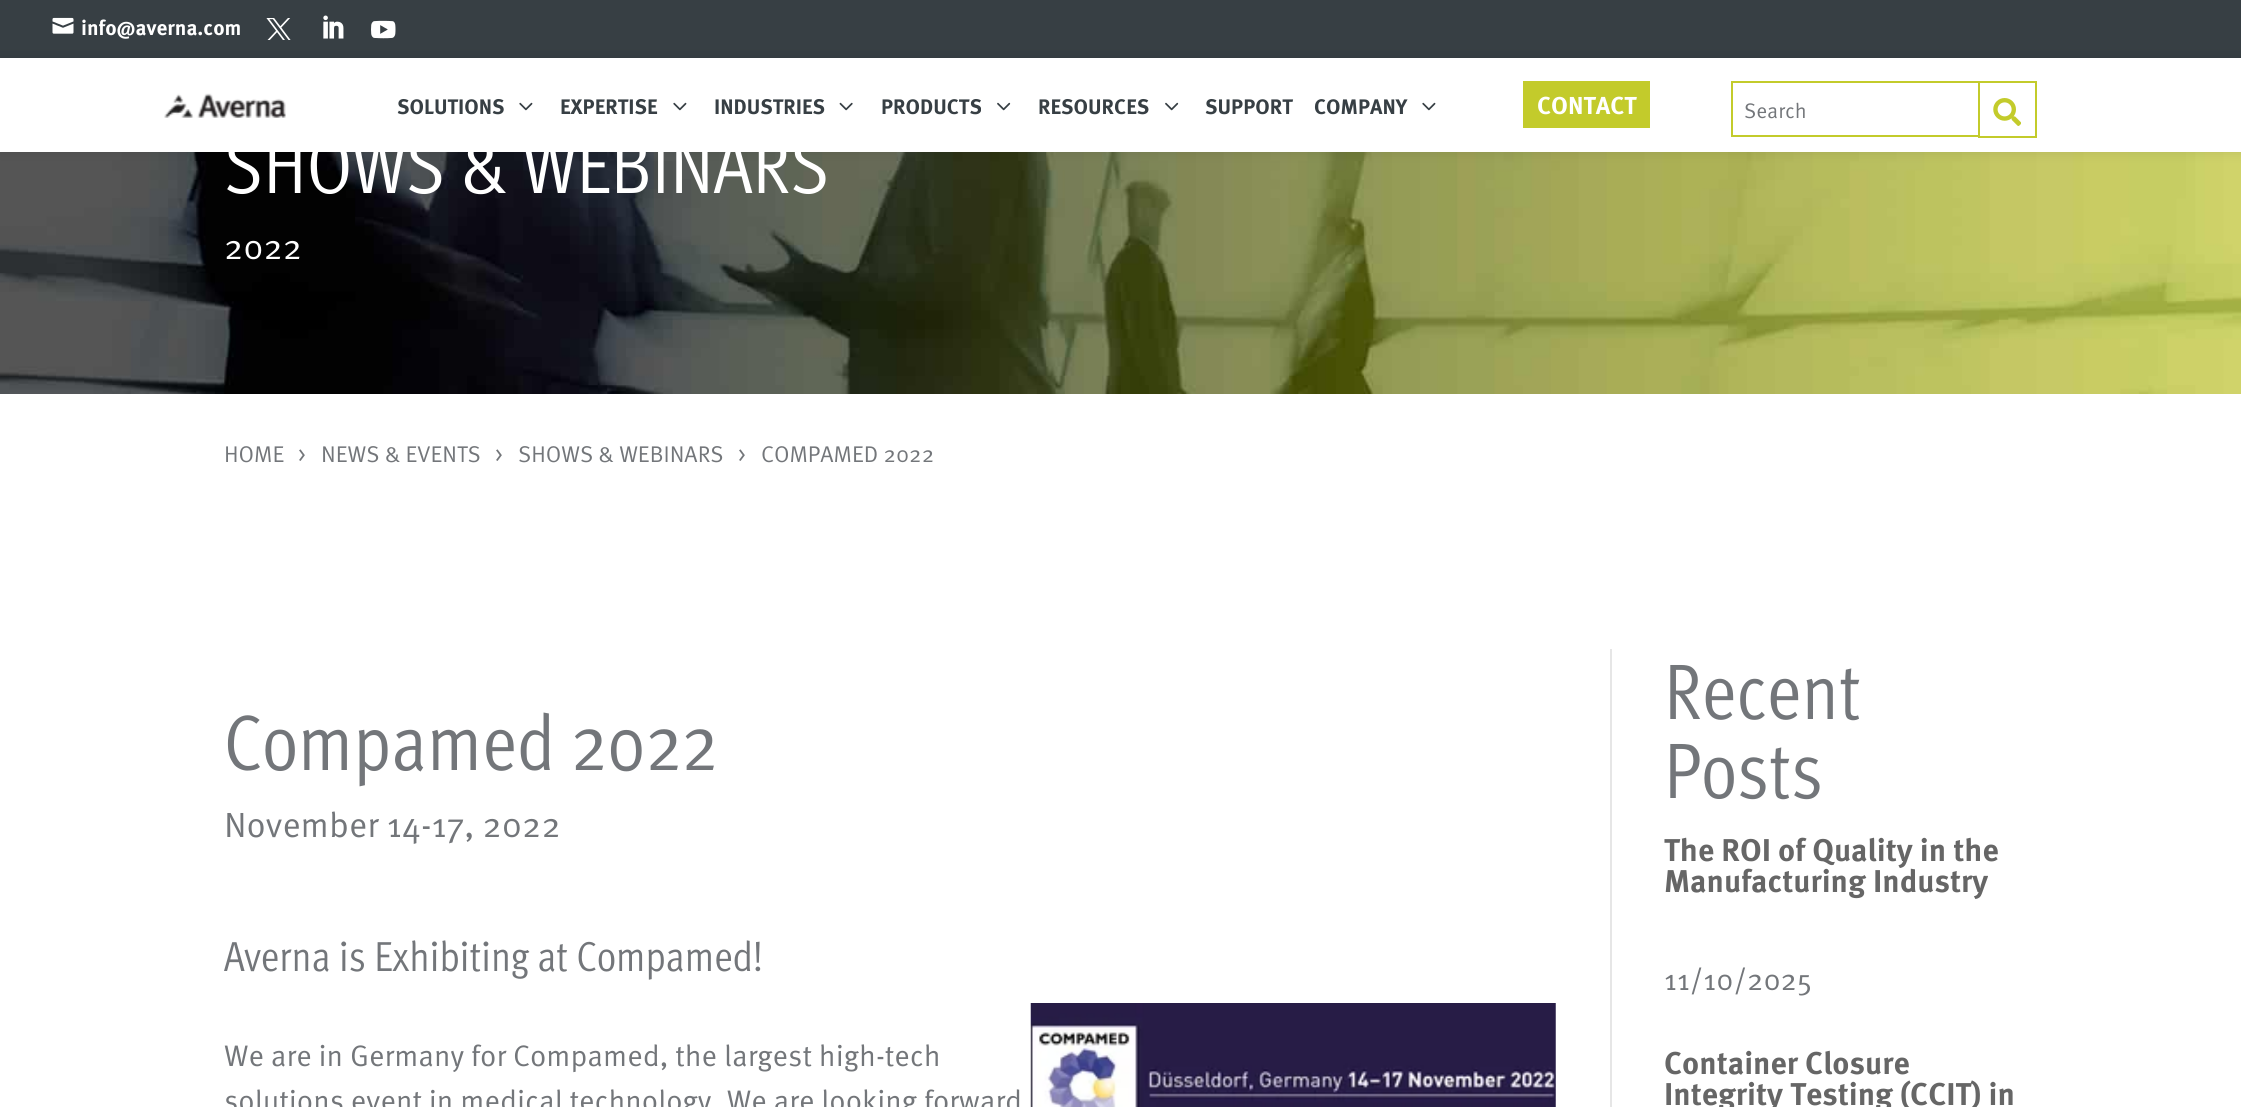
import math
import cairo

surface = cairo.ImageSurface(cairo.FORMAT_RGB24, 2241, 1107)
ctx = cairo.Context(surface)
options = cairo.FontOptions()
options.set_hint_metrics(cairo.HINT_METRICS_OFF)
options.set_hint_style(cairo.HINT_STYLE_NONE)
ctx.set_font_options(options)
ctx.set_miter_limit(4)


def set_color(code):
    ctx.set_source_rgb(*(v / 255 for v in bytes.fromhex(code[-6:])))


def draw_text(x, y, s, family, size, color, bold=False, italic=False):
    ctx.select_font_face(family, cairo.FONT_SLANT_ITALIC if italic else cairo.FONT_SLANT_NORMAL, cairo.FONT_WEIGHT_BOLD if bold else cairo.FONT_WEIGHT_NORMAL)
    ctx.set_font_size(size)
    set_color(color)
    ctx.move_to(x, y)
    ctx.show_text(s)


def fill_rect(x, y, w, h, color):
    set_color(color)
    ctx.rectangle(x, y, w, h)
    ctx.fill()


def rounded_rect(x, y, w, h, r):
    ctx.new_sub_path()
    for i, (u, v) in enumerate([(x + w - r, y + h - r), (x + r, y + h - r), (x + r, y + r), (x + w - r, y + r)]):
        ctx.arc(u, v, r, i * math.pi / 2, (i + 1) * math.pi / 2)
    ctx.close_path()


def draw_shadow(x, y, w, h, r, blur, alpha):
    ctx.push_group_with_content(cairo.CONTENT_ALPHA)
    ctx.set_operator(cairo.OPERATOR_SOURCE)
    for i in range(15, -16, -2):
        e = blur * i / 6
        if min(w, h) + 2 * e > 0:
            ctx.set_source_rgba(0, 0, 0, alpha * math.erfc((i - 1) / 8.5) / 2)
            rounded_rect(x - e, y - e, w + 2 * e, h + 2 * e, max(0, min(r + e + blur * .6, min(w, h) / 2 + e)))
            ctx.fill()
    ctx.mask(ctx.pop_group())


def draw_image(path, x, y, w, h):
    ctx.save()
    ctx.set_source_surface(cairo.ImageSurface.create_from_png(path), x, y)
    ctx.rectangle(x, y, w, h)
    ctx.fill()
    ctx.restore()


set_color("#ffffff")
ctx.paint()
fill_rect(0, 0, 2241, 58, "#373f44")
draw_image("assets/img1.png", 52, 17, 22, 17)
draw_text(81, 35, "info@averna.com", "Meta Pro", 21, "#ffffff", bold=True)
draw_image("assets/img10.png", 0, 152, 2241, 242)
set_color("#000000")
draw_shadow(0, 58, 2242, 94, 0, 6, 0.1)
draw_image("assets/img2.png", 266, 18, 25, 22)
draw_image("assets/img3.png", 323, 15, 21, 24)
draw_image("assets/img4.png", 371, 20, 25, 19)
fill_rect(0, 58, 2241, 94, "#ffffff")
draw_image("assets/img5.png", 164, 93, 122, 25)
draw_text(397, 114, "SOLUTIONS", "Meta Pro", 21, "#373f44", bold=True)
draw_image("assets/img6.png", 519, 102, 14, 9)
draw_text(560, 114, "EXPERTISE", "Meta Pro", 21, "#373f44", bold=True)
draw_image("assets/img6.png", 673, 102, 14, 9)
draw_text(714, 114, "INDUSTRIES", "Meta Pro", 21, "#373f44", bold=True)
draw_image("assets/img7.png", 839, 102, 14, 9)
draw_text(881, 114, "PRODUCTS", "Meta Pro", 21, "#373f44", bold=True)
draw_image("assets/img8.png", 997, 102, 14, 9)
draw_text(1038, 114, "RESOURCES", "Meta Pro", 21, "#373f44", bold=True)
draw_image("assets/img8.png", 1165, 102, 14, 9)
draw_text(1205, 114, "SUPPORT", "Meta Pro", 21, "#373f44", bold=True)
draw_text(1314, 114, "COMPANY", "Meta Pro", 21, "#373f44", bold=True)
draw_image("assets/img6.png", 1422, 102, 14, 9)
fill_rect(1523, 81, 127, 47, "#c3cb2b")
draw_text(1537, 114, "CONTACT", "Meta Pro", 24.5, "#ffffff", bold=True)
ctx.rectangle(1732, 82, 304, 54)
set_color("#c3cb2b")
ctx.stroke()
draw_text(1744, 118, "Search", "Meta Pro", 21, "#73767a")
fill_rect(1980, 135, 55, 1, "#ffffff")
ctx.rectangle(1979, 82, 57, 55)
set_color("#c3cb2b")
ctx.stroke()
draw_image("assets/img9.png", 1993, 98, 28, 28)
draw_text(224, 193, "SHOWS & WEBINARS", "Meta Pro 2", 78.75, "#ffffff")
draw_text(224, 259, "2022", "Meta Pro", 35, "#ffffff")
draw_text(224, 462, "HOME", "Meta Pro", 22.75, "#73767a")
draw_text(298, 462, ">", "Meta Pro", 22.75, "#73767a")
draw_text(321, 462, "NEWS & EVENTS", "Meta Pro", 22.75, "#73767a")
draw_text(495, 462, ">", "Meta Pro", 22.75, "#73767a")
draw_text(518, 462, "SHOWS & WEBINARS", "Meta Pro", 22.75, "#73767a")
draw_text(738, 462, ">", "Meta Pro", 22.75, "#73767a")
draw_text(761, 462, "COMPAMED 2022", "Meta Pro", 22.75, "#73767a")
draw_text(224, 770, "Compamed 2022", "Meta Pro 2", 78.75, "#73767a")
draw_text(224, 837, "November 14-17, 2022", "Meta Pro", 35, "#73767a")
draw_text(224, 971, "Averna is Exhibiting at Compamed!", "Meta Pro 2", 42, "#73767a")
draw_text(224, 1066, "We are in Germany for Compamed, the largest high-tech", "Meta Pro", 29.75, "#73767a")
draw_text(224, 1111, "solutions event in medical technology. We are looking forward", "Meta Pro", 29.75, "#73767a")
draw_image("assets/img11.png", 1030, 1003, 526, 104)
fill_rect(1610, 649, 2, 458, "#e6e6e6")
draw_text(1664, 719, "Recent", "Meta Pro 2", 78.75, "#73767a")
draw_text(1664, 798, "Posts", "Meta Pro 2", 78.75, "#73767a")
draw_text(1664, 861, "The ROI of Quality in the", "Meta Pro", 31.5, "#666666", bold=True)
draw_text(1664, 892, "Manufacturing Industry", "Meta Pro", 31.5, "#666666", bold=True)
draw_text(1664, 990, "11/10/2025", "Meta Pro", 29.75, "#73767a")
draw_text(1664, 1074, "Container Closure", "Meta Pro", 31.5, "#666666", bold=True)
draw_text(1664, 1105, "Integrity Testing (CCIT) in", "Meta Pro", 31.5, "#666666", bold=True)
surface.write_to_png("output.png")
